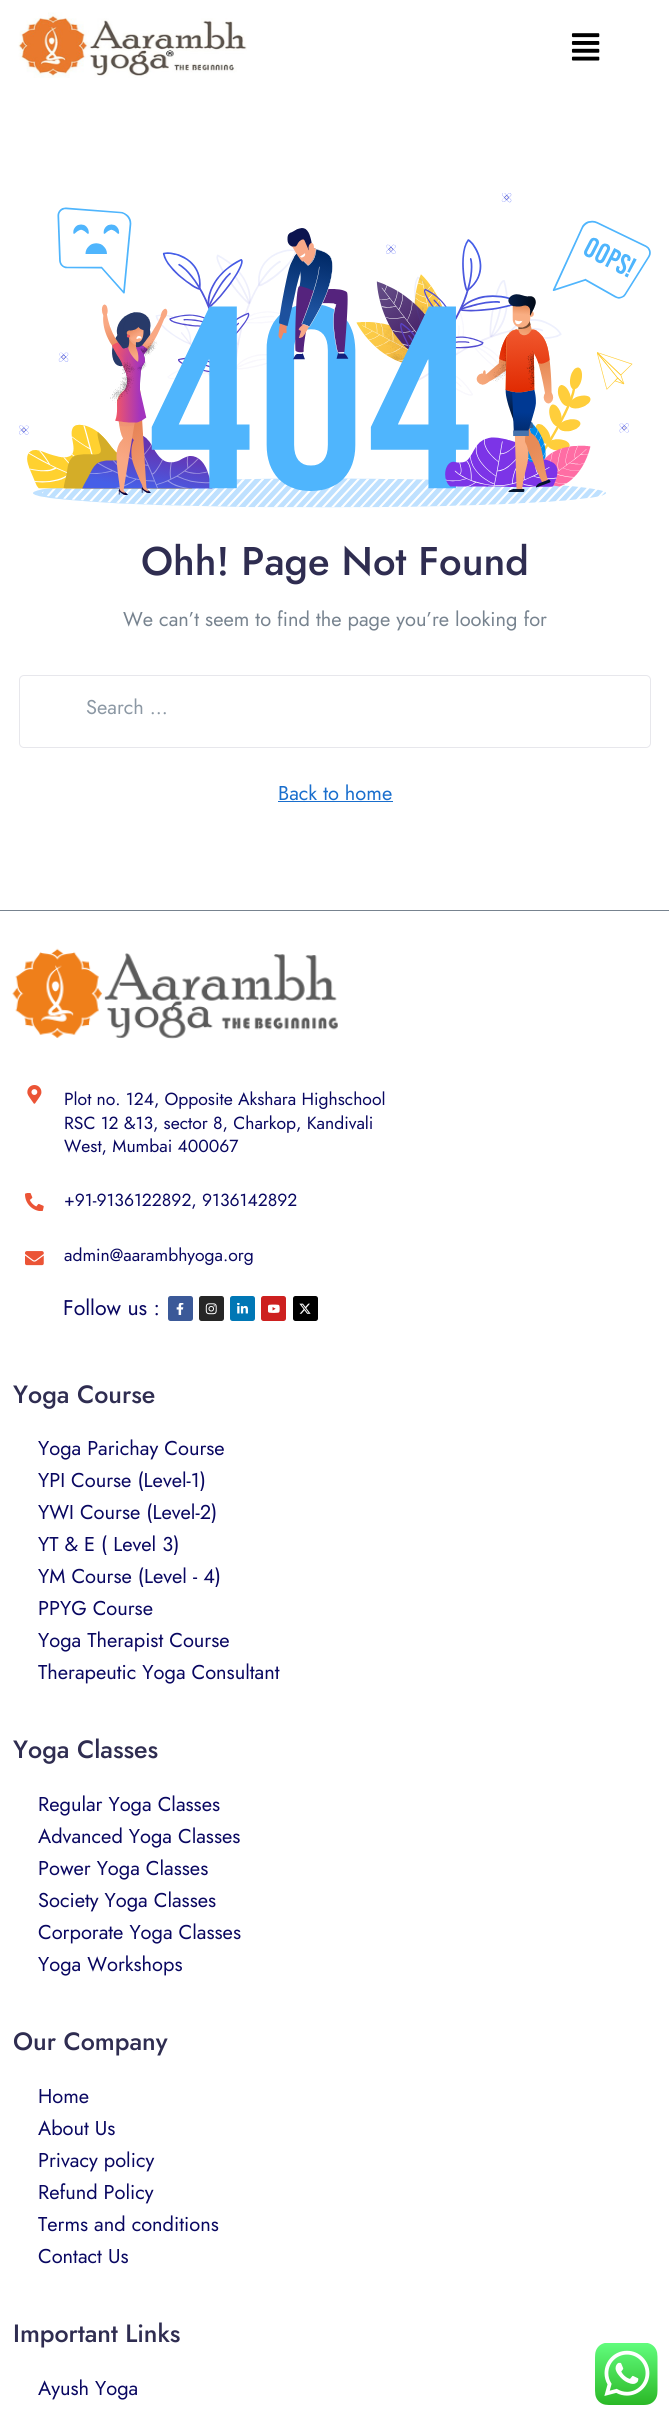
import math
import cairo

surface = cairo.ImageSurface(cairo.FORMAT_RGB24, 669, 2417)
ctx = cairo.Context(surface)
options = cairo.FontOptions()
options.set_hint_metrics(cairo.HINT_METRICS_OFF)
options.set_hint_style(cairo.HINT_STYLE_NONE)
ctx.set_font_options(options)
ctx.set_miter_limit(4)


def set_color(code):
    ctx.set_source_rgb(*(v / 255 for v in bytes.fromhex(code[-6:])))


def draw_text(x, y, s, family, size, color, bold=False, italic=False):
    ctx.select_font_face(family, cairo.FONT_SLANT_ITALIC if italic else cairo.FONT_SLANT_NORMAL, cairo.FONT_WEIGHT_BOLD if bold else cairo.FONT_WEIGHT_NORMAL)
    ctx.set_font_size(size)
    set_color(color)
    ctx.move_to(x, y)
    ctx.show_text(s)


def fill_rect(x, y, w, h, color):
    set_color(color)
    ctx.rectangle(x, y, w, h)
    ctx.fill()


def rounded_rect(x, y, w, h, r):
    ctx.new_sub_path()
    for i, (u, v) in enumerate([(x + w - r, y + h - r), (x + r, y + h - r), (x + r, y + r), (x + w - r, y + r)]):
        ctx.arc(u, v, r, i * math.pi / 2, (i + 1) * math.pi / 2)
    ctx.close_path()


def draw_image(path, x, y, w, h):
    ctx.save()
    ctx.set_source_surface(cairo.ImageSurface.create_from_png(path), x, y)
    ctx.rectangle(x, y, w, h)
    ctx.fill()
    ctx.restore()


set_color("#ffffff")
ctx.paint()
draw_image("assets/img1.png", 18, 12, 229, 66)
draw_image("assets/img2.png", 571, 33, 29, 28)
draw_image("assets/img3.png", 19, 193, 632, 315)
draw_text(141, 575, "Ohh! Page Not Found", "Jost Medium", 40, "#2f2d51")
draw_text(123, 626, "We can’t seem to find the page you’re looking for", "Jost", 20, "#77838f")
rounded_rect(19.5, 675.5, 631, 72, 4.5)
set_color("#e7e7ec")
ctx.set_line_width(1)
ctx.stroke()
draw_text(86, 714, "Search …", "Jost", 20, "#8c98a4")
draw_text(278, 800, "Back to home", "Jost", 20, "#196ecd")
fill_rect(278, 801, 115, 1, "#196ecd")
fill_rect(0, 910, 669, 1, "#77838f")
draw_image("assets/img4.png", 12, 948, 326, 91)
draw_image("assets/img5.png", 27, 1085, 15, 19)
draw_text(64, 1105, "Plot no. 124, Opposite Akshara Highschool", "Jost", 17.5, "#090761")
draw_text(64, 1129, "RSC 12 &13, sector 8, Charkop, Kandivali", "Jost", 17.5, "#090761")
draw_text(64, 1152, "West, Mumbai 400067", "Jost", 17.5, "#090761")
draw_image("assets/img6.png", 25, 1193, 19, 18)
draw_text(64, 1206, "+91-9136122892, 9136142892", "Jost", 17.5, "#090761")
draw_image("assets/img7.png", 25, 1251, 19, 15)
draw_text(64, 1261, "admin@aarambhyoga.org", "Jost", 17.5, "#090761")
draw_text(63, 1315, "Follow us :", "Jost", 21.25, "#090761")
set_color("#3b5998")
rounded_rect(168, 1296, 25, 25, 2.5)
ctx.fill()
draw_image("assets/img8.png", 176, 1303, 8, 12)
set_color("#262626")
rounded_rect(199, 1296, 25, 25, 2.5)
ctx.fill()
draw_image("assets/img9.png", 205, 1303, 12, 12)
set_color("#0077b5")
rounded_rect(230, 1296, 25, 25, 2.5)
ctx.fill()
draw_image("assets/img10.png", 237, 1303, 11, 11)
set_color("#cd201f")
rounded_rect(261, 1296, 25, 25, 2.5)
ctx.fill()
draw_image("assets/img11.png", 268, 1304, 12, 9)
set_color("#000000")
rounded_rect(293, 1296, 25, 25, 2.5)
ctx.fill()
draw_image("assets/img12.png", 299, 1303, 12, 11)
draw_text(13, 1403, "Yoga Course", "Jost Medium", 25, "#2f2d51")
draw_text(38, 1455, "Yoga Parichay Course", "Jost", 20, "#090761")
draw_text(38, 1487, "YPI Course (Level-1)", "Jost", 20, "#090761")
draw_text(38, 1519, "YWI Course (Level-2)", "Jost", 20, "#090761")
draw_text(38, 1551, "YT & E ( Level 3)", "Jost", 20, "#090761")
draw_text(38, 1583, "YM Course (Level - 4)", "Jost", 20, "#090761")
draw_text(38, 1615, "PPYG Course", "Jost", 20, "#090761")
draw_text(38, 1647, "Yoga Therapist Course", "Jost", 20, "#090761")
draw_text(38, 1679, "Therapeutic Yoga Consultant", "Jost", 20, "#090761")
draw_text(13, 1758, "Yoga Classes", "Jost Medium", 25, "#2f2d51")
draw_text(38, 1811, "Regular Yoga Classes", "Jost", 20, "#090761")
draw_text(38, 1843, "Advanced Yoga Classes", "Jost", 20, "#090761")
draw_text(38, 1875, "Power Yoga Classes", "Jost", 20, "#090761")
draw_text(38, 1907, "Society Yoga Classes", "Jost", 20, "#090761")
draw_text(38, 1939, "Corporate Yoga Classes", "Jost", 20, "#090761")
draw_text(38, 1971, "Yoga Workshops", "Jost", 20, "#090761")
draw_text(13, 2050, "Our Company", "Jost Medium", 25, "#2f2d51")
draw_text(38, 2103, "Home", "Jost", 20, "#090761")
draw_text(38, 2135, "About Us", "Jost", 20, "#090761")
draw_text(38, 2167, "Privacy policy", "Jost", 20, "#090761")
draw_text(38, 2199, "Refund Policy", "Jost", 20, "#090761")
draw_text(38, 2231, "Terms and conditions", "Jost", 20, "#090761")
draw_text(38, 2263, "Contact Us", "Jost", 20, "#090761")
draw_text(13, 2342, "Important Links", "Jost Medium", 25, "#2f2d51")
draw_text(38, 2395, "Ayush Yoga", "Jost", 20, "#090761")
draw_image("assets/img13.png", 595, 2343, 63, 62)
surface.write_to_png("output.png")
